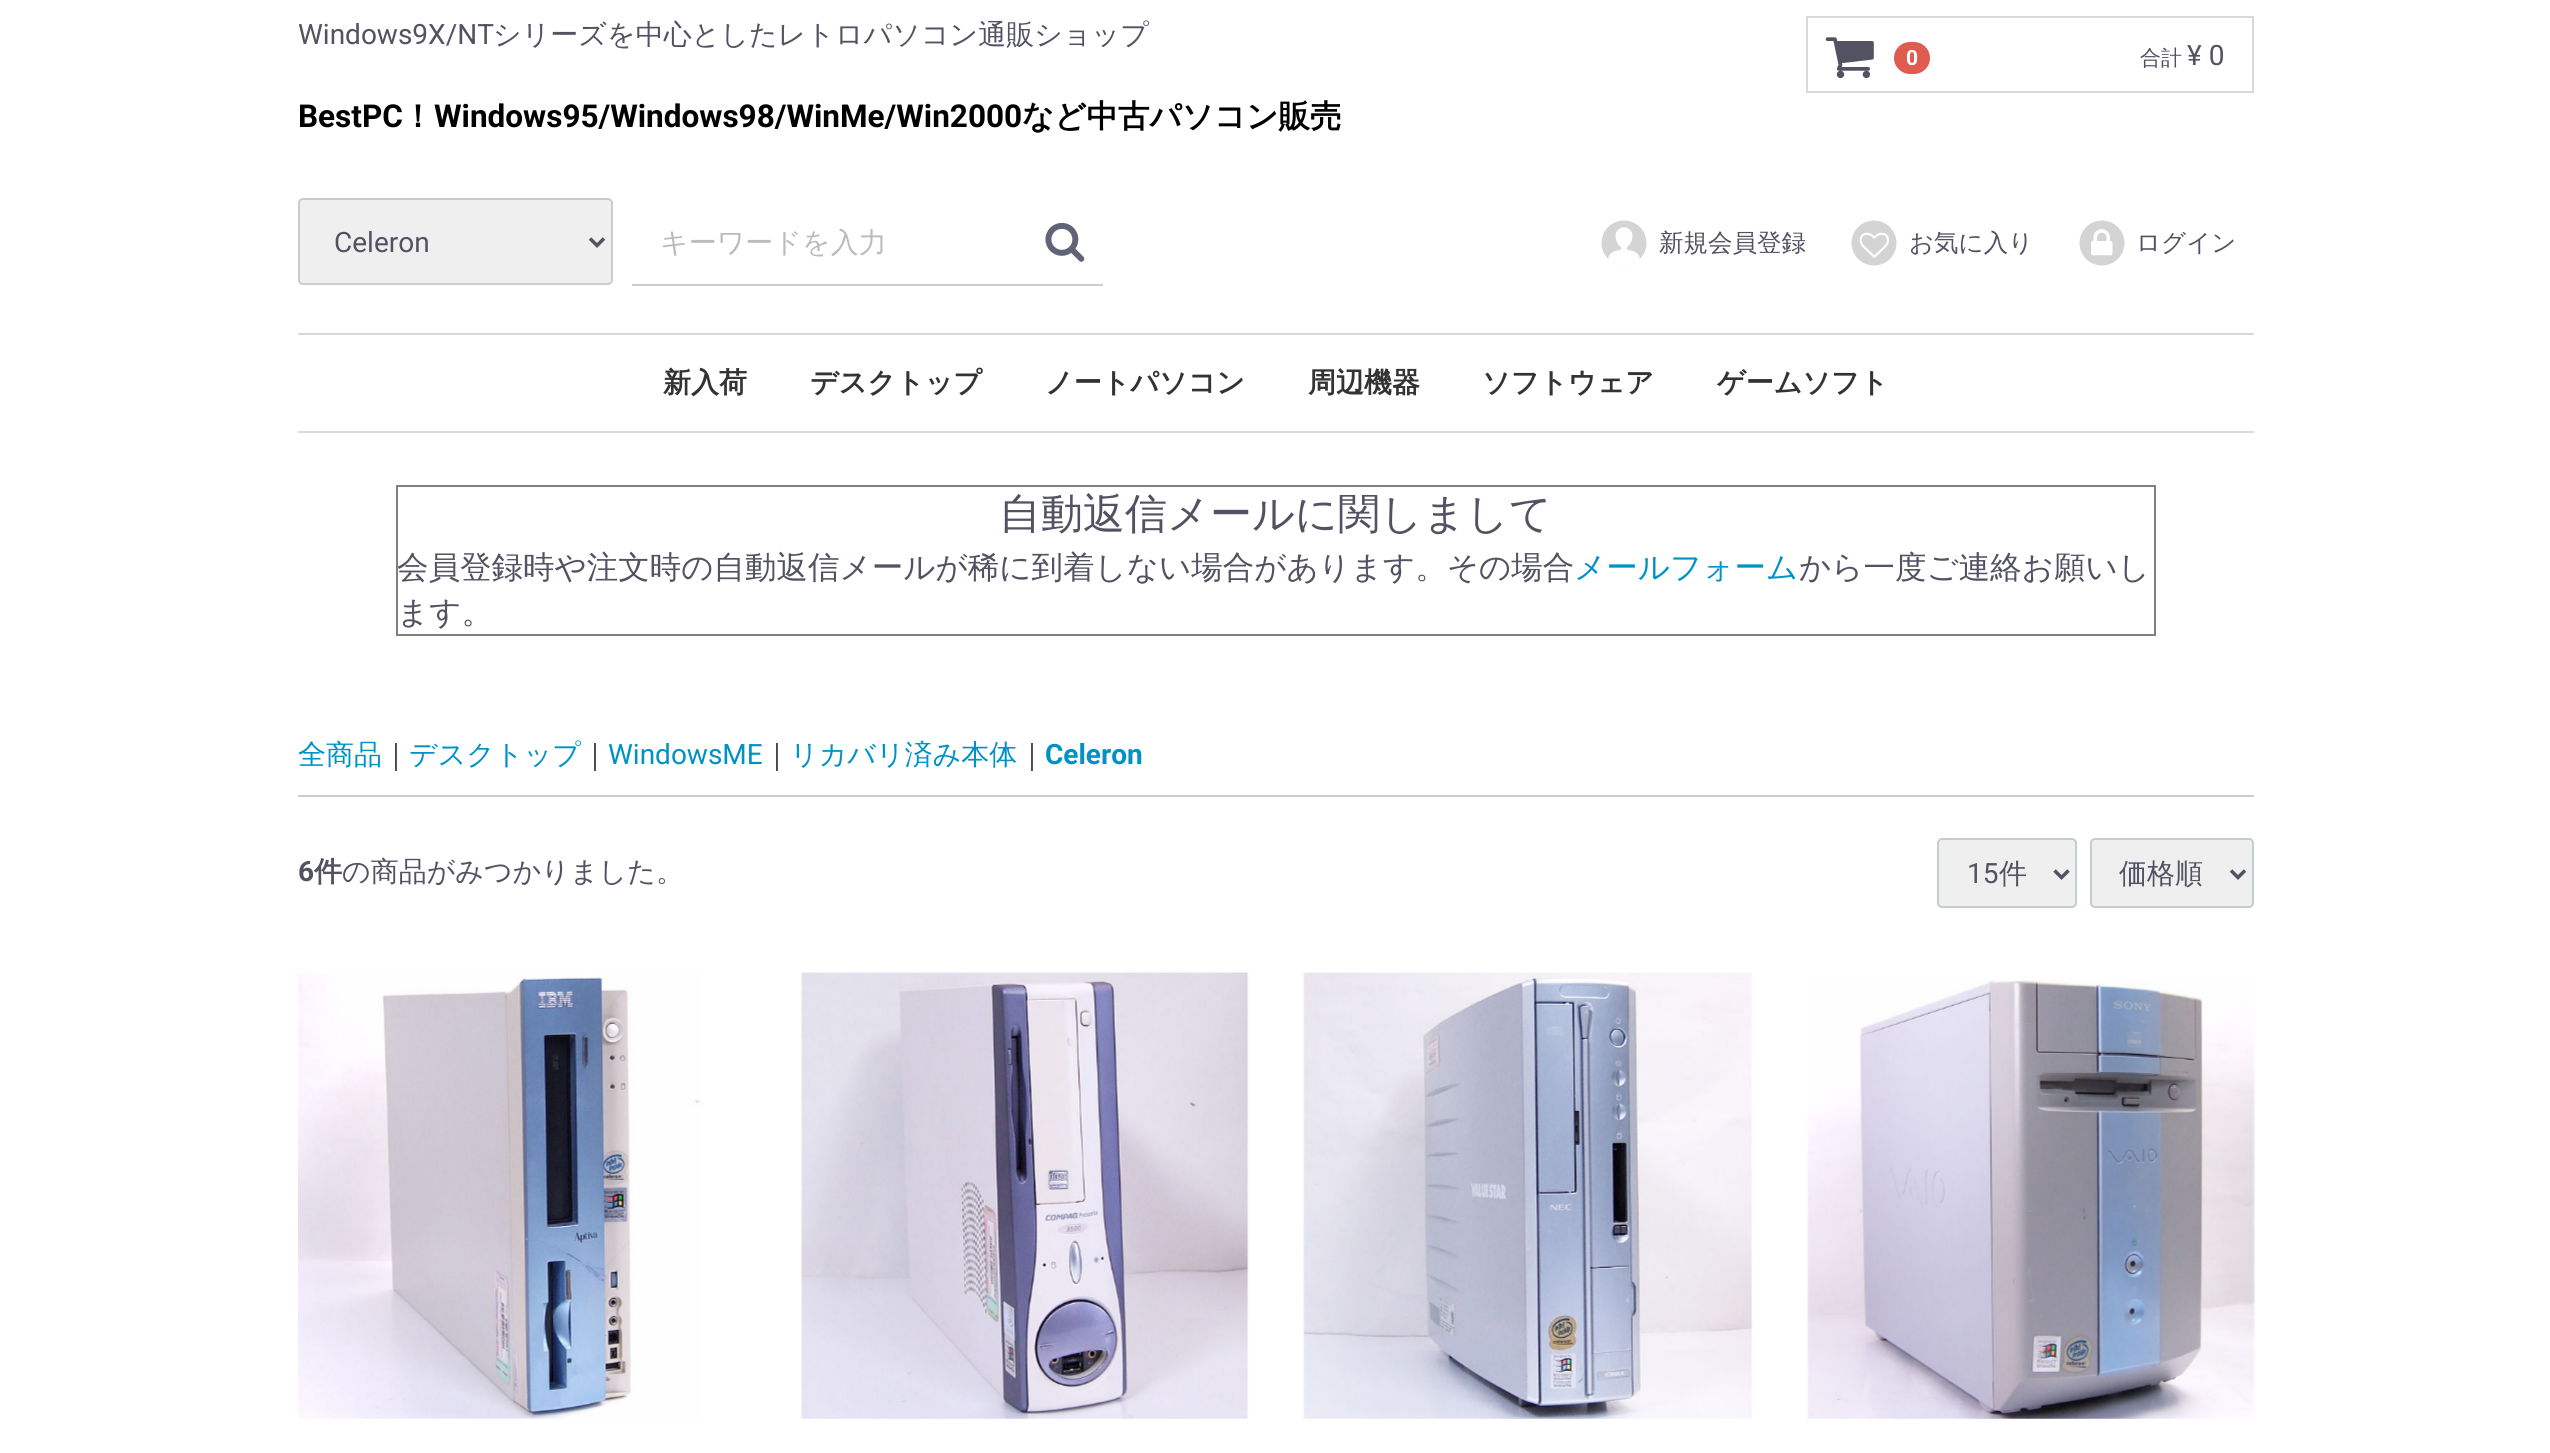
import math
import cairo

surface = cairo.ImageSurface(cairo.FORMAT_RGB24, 2550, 1453)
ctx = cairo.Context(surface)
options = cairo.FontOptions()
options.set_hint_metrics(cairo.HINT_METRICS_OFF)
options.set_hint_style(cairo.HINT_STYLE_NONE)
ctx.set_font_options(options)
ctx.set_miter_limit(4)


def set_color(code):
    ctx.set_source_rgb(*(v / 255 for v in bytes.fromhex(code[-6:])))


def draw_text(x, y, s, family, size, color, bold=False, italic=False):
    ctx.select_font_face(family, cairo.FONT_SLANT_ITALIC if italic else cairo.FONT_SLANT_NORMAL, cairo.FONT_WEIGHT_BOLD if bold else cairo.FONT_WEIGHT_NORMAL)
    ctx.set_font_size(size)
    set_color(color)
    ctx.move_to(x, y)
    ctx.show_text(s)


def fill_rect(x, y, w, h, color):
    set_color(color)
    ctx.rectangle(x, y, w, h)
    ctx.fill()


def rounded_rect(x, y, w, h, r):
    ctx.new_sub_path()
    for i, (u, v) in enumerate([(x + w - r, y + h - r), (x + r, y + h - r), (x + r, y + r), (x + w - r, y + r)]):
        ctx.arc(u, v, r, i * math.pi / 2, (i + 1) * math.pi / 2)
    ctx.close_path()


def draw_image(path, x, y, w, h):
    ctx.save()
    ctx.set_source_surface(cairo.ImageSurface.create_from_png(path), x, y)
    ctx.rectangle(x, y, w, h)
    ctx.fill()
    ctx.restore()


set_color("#ffffff")
ctx.paint()
draw_text(298, 44, "Windows9X/NT", "Roboto", 28, "#525263")
draw_text(493, 44, "シリーズを中心としたレトロパソコン通販ショップ", "WenQuanYi Zen Hei Medium", 28, "#525263")
draw_text(298, 127, "BestPC", "Roboto", 31.5, "#000000", bold=True)
draw_text(402, 127, "！", "WenQuanYi Zen Hei", 31.5, "#000000", bold=True)
draw_text(434, 127, "Windows95/Windows98/WinMe/Win2000", "Roboto", 31.5, "#000000", bold=True)
draw_text(1022, 127, "など中古パソコン販売", "WenQuanYi Zen Hei", 31.5, "#000000", bold=True)
ctx.rectangle(1807, 17, 446, 75)
set_color("#d9d9d9")
ctx.stroke()
draw_image("assets/img1.png", 1825, 37, 49, 42)
set_color("#de5d50")
rounded_rect(1894, 42, 36, 32, 16)
ctx.fill()
draw_text(1906, 65, "0", "Roboto", 21, "#ffffff", bold=True)
draw_text(2140, 65, "合計", "WenQuanYi Zen Hei Medium", 21, "#525263")
draw_text(2187, 65, "¥ 0", "Roboto", 28, "#525263")
set_color("#efefef")
rounded_rect(299, 199, 313, 85, 4)
ctx.fill_preserve()
set_color("#cccccc")
ctx.stroke()
ctx.new_path()
ctx.move_to(590, 238.5)
ctx.line_to(597, 245.5)
ctx.line_to(604, 238.5)
set_color("#525263")
ctx.set_line_width(3.5)
ctx.stroke()
draw_text(334, 252, "Celeron", "Roboto", 28, "#525263")
fill_rect(632, 284, 471, 2, "#cccccc")
draw_text(660, 252, "キーワードを入力", "WenQuanYi Zen Hei Medium", 28, "#bbbbbb")
draw_image("assets/img2.png", 1045, 222, 40, 40)
draw_image("assets/img3.png", 1601, 220, 46, 46)
draw_text(1659, 251, "新規会員登録", "WenQuanYi Zen Hei Medium", 24.5, "#525263")
draw_image("assets/img4.png", 1851, 220, 46, 46)
draw_text(1909, 251, "お気に入り", "WenQuanYi Zen Hei Medium", 24.5, "#525263")
draw_image("assets/img5.png", 2079, 220, 46, 46)
draw_text(2136, 251, "ログイン", "WenQuanYi Zen Hei Medium", 24.5, "#525263")
fill_rect(298, 333, 1956, 2, "#d9d9d9")
fill_rect(298, 431, 1956, 2, "#d9d9d9")
draw_text(663, 392, "新入荷", "WenQuanYi Zen Hei", 28, "#333333", bold=True)
draw_text(810, 392, "デスクトップ", "WenQuanYi Zen Hei", 28, "#333333", bold=True)
draw_text(1045, 392, "ノートパソコン", "WenQuanYi Zen Hei", 28, "#333333", bold=True)
draw_text(1308, 392, "周辺機器", "WenQuanYi Zen Hei", 28, "#333333", bold=True)
draw_text(1482, 392, "ソフトウェア", "WenQuanYi Zen Hei", 28, "#333333", bold=True)
draw_text(1717, 392, "ゲームソフト", "WenQuanYi Zen Hei", 28, "#333333", bold=True)
fill_rect(396, 485, 1760, 2, "#808080")
fill_rect(2154, 485, 2, 150, "#808080")
fill_rect(396, 634, 1760, 2, "#808080")
fill_rect(396, 485, 2, 150, "#808080")
draw_text(999, 528, "自動返信メールに関しまして", "WenQuanYi Zen Hei Medium", 42, "#525263")
draw_text(397, 578, "会員登録時や注文時の自動返信メールが稀に到着しない場合があります。その場合", "WenQuanYi Zen Hei Medium", 31.5, "#525263")
draw_text(1574, 578, "メールフォーム", "WenQuanYi Zen Hei Medium", 31.5, "#0092c4")
draw_text(1799, 578, "から一度ご連絡お願いし", "WenQuanYi Zen Hei Medium", 31.5, "#525263")
draw_text(397, 623, "ます。", "WenQuanYi Zen Hei Medium", 31.5, "#525263")
fill_rect(298, 795, 1956, 2, "#cccccc")
draw_text(298, 764, "全商品", "WenQuanYi Zen Hei Medium", 28, "#0092c4")
draw_text(382, 764, "｜", "WenQuanYi Zen Hei Medium", 28, "#333333")
draw_text(409, 764, "デスクトップ", "WenQuanYi Zen Hei Medium", 28, "#0092c4")
draw_text(581, 764, "｜", "WenQuanYi Zen Hei Medium", 28, "#333333")
draw_text(608, 764, "WindowsME", "Roboto", 28, "#0092c4")
draw_text(763, 764, "｜", "WenQuanYi Zen Hei Medium", 28, "#333333")
draw_text(790, 764, "リカバリ済み本体", "WenQuanYi Zen Hei Medium", 28, "#0092c4")
draw_text(1018, 764, "｜", "WenQuanYi Zen Hei Medium", 28, "#333333")
draw_text(1045, 764, "Celeron", "Roboto", 28, "#0092c4", bold=True)
draw_text(298, 881, "6", "Roboto", 28, "#525263", bold=True)
draw_text(314, 881, "件", "WenQuanYi Zen Hei", 28, "#525263", bold=True)
draw_text(342, 881, "の商品がみつかりました。", "WenQuanYi Zen Hei Medium", 28, "#525263")
set_color("#efefef")
rounded_rect(1938, 839, 138, 68, 4)
ctx.fill_preserve()
set_color("#c4ccce")
ctx.set_line_width(2)
ctx.stroke()
ctx.new_path()
ctx.move_to(2054.5, 870.5)
ctx.line_to(2061.5, 877.5)
ctx.line_to(2068.5, 870.5)
set_color("#525263")
ctx.set_line_width(3.5)
ctx.stroke()
draw_text(1967, 883, "15", "Roboto", 28, "#525263")
draw_text(1999, 883, "件", "WenQuanYi Zen Hei Medium", 28, "#525263")
set_color("#efefef")
rounded_rect(2091, 839, 162, 68, 4)
ctx.fill_preserve()
set_color("#c4ccce")
ctx.set_line_width(2)
ctx.stroke()
ctx.new_path()
ctx.move_to(2231, 870.5)
ctx.line_to(2238, 877.5)
ctx.line_to(2245, 870.5)
set_color("#525263")
ctx.set_line_width(3.5)
ctx.stroke()
draw_text(2119, 883, "価格順", "WenQuanYi Zen Hei Medium", 28, "#525263")
draw_image("assets/img6.png", 298, 973, 404, 446)
draw_image("assets/img7.png", 801, 972, 448, 447)
draw_image("assets/img8.png", 1303, 972, 450, 447)
draw_image("assets/img9.png", 1807, 979, 448, 440)
surface.write_to_png("output.png")
